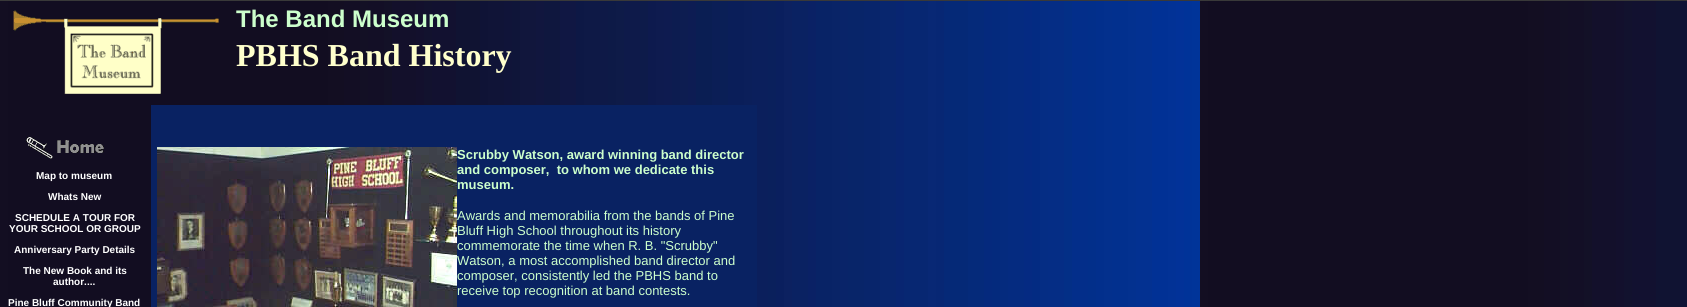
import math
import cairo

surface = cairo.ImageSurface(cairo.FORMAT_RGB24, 1687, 307)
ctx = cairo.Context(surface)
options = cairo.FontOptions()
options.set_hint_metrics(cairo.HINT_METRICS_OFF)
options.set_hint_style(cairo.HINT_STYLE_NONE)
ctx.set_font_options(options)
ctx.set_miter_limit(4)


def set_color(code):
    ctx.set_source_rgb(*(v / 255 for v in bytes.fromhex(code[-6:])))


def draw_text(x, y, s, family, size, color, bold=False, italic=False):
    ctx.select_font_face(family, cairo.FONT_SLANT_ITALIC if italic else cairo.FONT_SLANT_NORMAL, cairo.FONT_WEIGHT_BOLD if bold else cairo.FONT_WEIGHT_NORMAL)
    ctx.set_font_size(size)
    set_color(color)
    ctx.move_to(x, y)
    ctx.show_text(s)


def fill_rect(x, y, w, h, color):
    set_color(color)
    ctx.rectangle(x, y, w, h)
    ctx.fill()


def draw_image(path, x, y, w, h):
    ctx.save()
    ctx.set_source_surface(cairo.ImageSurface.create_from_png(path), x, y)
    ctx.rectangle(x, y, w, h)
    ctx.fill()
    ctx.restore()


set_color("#ffffff")
ctx.paint()
draw_image("assets/img1.png", 0, 1, 1687, 306)
fill_rect(0, 0, 1687, 1, "#393939")
draw_image("assets/img2.png", 13, 10, 206, 84)
draw_text(236, 27, "The Band Museum", "Liberation Sans", 24, "#ccffcc", bold=True)
draw_text(236, 66, "PBHS Band History", "Liberation Serif", 32, "#ffffcc", bold=True)
draw_image("assets/img3.png", 26, 137, 78, 22)
draw_text(36, 179, "Map to museum", "Liberation Sans", 10, "#ffffff", bold=True)
draw_text(48, 200, "Whats New", "Liberation Sans", 10, "#ffffff", bold=True)
draw_text(15, 221, "SCHEDULE A TOUR FOR", "Liberation Sans", 10, "#ffffff", bold=True)
draw_text(9, 232, "YOUR SCHOOL OR GROUP", "Liberation Sans", 10, "#ffffff", bold=True)
draw_text(14, 253, "Anniversary Party Details", "Liberation Sans", 10, "#ffffff", bold=True)
draw_text(23, 274, "The New Book and its", "Liberation Sans", 10, "#ffffff", bold=True)
draw_text(53, 285, "author....", "Liberation Sans", 10, "#ffffff", bold=True)
draw_text(8, 306, "Pine Bluff Community Band", "Liberation Sans", 10, "#ffffff", bold=True)
fill_rect(151, 105, 606, 202, "#092262")
draw_image("assets/img4.png", 157, 147, 300, 160)
draw_text(457, 159, "Scrubby Watson, award winning band director", "Liberation Sans", 13, "#ccffcc", bold=True)
draw_text(457, 174, "and composer,  to whom we dedicate this", "Liberation Sans", 13, "#ccffcc", bold=True)
draw_text(457, 189, "museum.", "Liberation Sans", 13, "#ccffcc", bold=True)
draw_text(457, 220, "Awards and memorabilia from the bands of Pine", "Liberation Sans", 13, "#ccffcc")
draw_text(457, 235, "Bluff High School throughout its history", "Liberation Sans", 13, "#ccffcc")
draw_text(457, 250, "commemorate the time when R. B. \"Scrubby\"", "Liberation Sans", 13, "#ccffcc")
draw_text(457, 265, "Watson, a most accomplished band director and", "Liberation Sans", 13, "#ccffcc")
draw_text(457, 280, "composer, consistently led the PBHS band to", "Liberation Sans", 13, "#ccffcc")
draw_text(457, 295, "receive top recognition at band contests.", "Liberation Sans", 13, "#ccffcc")
surface.write_to_png("output.png")
